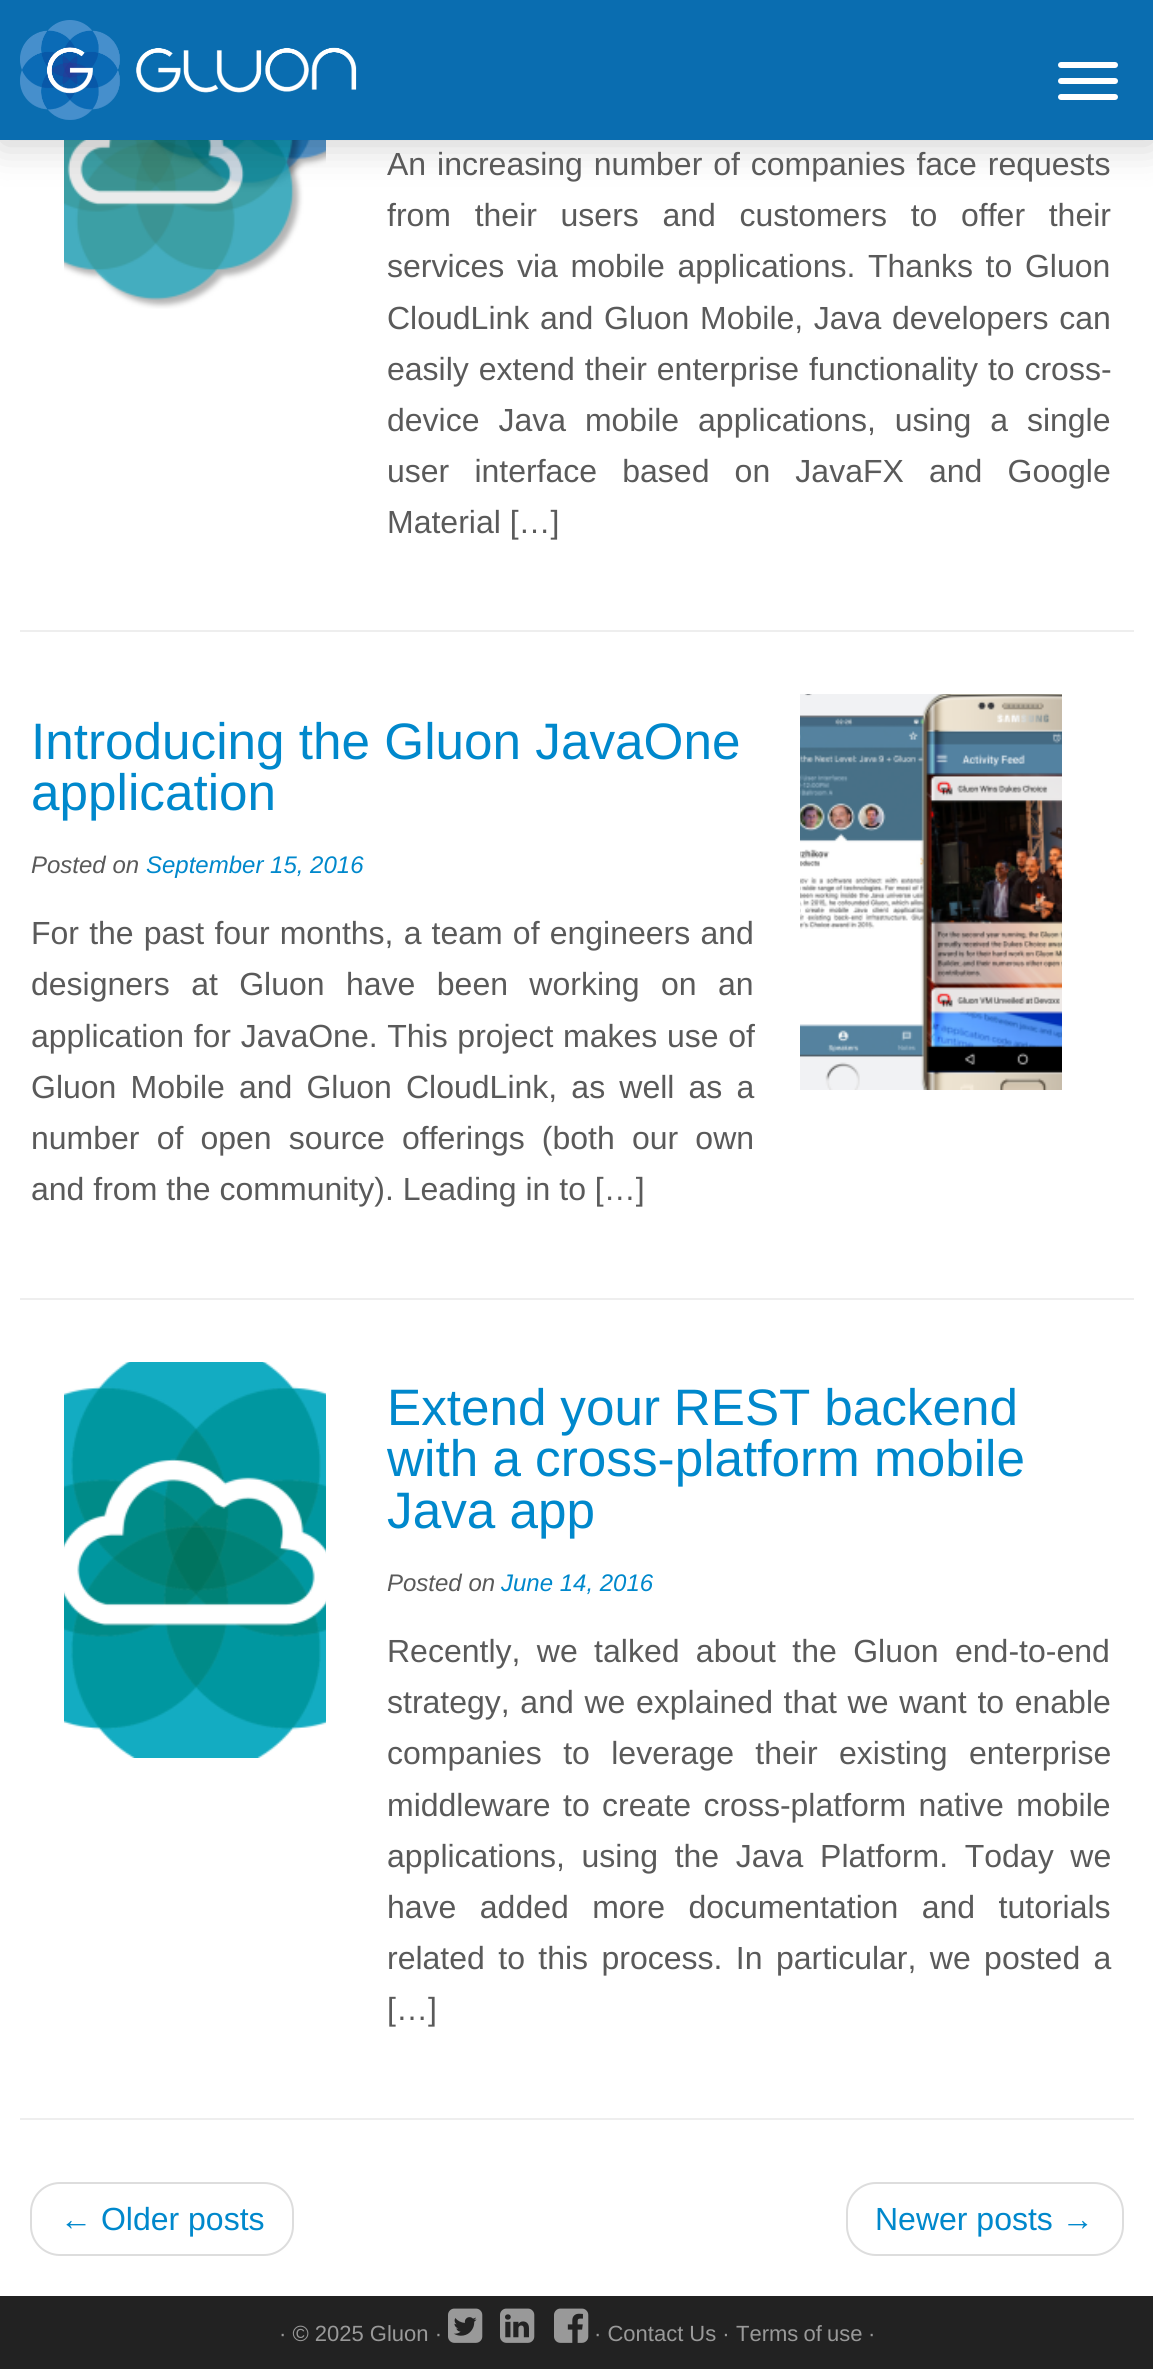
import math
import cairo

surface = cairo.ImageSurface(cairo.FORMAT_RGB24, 1153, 2369)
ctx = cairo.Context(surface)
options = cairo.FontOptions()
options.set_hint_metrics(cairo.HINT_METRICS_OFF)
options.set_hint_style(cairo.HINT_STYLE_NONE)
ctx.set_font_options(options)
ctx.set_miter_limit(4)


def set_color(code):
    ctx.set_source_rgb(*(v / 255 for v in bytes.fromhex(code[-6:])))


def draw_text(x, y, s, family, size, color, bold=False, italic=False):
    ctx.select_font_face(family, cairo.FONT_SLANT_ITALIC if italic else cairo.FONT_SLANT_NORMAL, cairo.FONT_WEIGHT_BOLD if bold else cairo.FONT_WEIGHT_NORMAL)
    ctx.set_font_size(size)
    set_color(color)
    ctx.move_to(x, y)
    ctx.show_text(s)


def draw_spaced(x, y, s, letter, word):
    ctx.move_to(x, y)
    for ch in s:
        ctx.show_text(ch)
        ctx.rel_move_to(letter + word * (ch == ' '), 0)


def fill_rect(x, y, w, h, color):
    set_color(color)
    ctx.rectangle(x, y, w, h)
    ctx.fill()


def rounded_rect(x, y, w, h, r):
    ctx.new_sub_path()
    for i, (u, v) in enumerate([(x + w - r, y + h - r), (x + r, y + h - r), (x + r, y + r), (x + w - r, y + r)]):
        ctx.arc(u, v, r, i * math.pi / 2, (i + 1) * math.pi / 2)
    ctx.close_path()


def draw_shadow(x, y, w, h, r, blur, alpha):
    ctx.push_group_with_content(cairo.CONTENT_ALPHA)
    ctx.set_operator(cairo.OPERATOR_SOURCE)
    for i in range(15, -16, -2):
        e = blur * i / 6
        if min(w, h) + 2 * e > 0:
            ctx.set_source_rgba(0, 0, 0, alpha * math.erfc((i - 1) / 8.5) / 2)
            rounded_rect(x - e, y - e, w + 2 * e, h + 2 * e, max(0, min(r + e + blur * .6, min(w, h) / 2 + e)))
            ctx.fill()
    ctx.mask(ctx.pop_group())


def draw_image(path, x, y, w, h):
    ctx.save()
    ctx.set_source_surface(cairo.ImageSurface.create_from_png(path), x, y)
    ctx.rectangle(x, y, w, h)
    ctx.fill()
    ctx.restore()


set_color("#ffffff")
ctx.paint()
draw_image("assets/img2.png", 64, 140, 262, 169)
set_color("#000000")
draw_shadow(0, 4, 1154, 140, 0, 20, 0.2)
fill_rect(0, 0, 1153, 140, "#0a6db0")
draw_image("assets/img1.png", 20, 20, 337, 100)
set_color("#ffffff")
rounded_rect(1058, 62, 60, 6, 3)
ctx.fill()
rounded_rect(1058, 78, 60, 6, 3)
ctx.fill()
rounded_rect(1058, 94, 60, 6, 3)
ctx.fill()
ctx.select_font_face("Liberation Sans")
ctx.set_font_size(32)
set_color("#5a5a5a")
draw_spaced(387, 175, "An increasing number of companies face requests", 0, 2)
draw_spaced(387, 226, "from their users and customers to offer their", 0, 14.75)
draw_spaced(387, 277, "services via mobile applications. Thanks to Gluon", 0, 3.75)
draw_spaced(387, 329, "CloudLink and Gluon Mobile, Java developers can", 0, 1.75)
draw_spaced(387, 380, "easily extend their enterprise functionality to cross-", 0, 1)
draw_spaced(387, 431, "device Java mobile applications, using a single", 0, 10)
draw_spaced(387, 482, "user interface based on JavaFX and Google", 0, 16.25)
draw_text(387, 533, "Material […]", "Liberation Sans", 32, "#5a5a5a")
fill_rect(20, 630, 1114, 2, "#eeeeee")
draw_text(31, 759, "Introducing the Gluon JavaOne", "Liberation Sans", 51.25, "#0088cc")
draw_text(31, 810, "application", "Liberation Sans", 51.25, "#0088cc")
draw_text(31, 873, "Posted on", "Liberation Sans", 24, "#5a5a5a", italic=True)
draw_text(146, 873, "September 15, 2016", "Liberation Sans", 24, "#0088cc", italic=True)
ctx.select_font_face("Liberation Sans")
ctx.set_font_size(32)
set_color("#5a5a5a")
draw_spaced(31, 944, "For the past four months, a team of engineers and", 0, 1.25)
draw_spaced(31, 995, "designers at Gluon have been working on an", 0, 12.5)
draw_spaced(31, 1047, "application for JavaOne. This project makes use of", 0, 0.75)
draw_spaced(31, 1098, "Gluon Mobile and Gluon CloudLink, as well as a", 0, 5.25)
draw_spaced(31, 1149, "number of open source offerings (both our own", 0, 8.25)
draw_text(31, 1200, "and from the community). Leading in to […]", "Liberation Sans", 32, "#5a5a5a")
draw_image("assets/img3.png", 800, 694, 262, 396)
fill_rect(20, 1298, 1114, 2, "#eeeeee")
draw_image("assets/img4.png", 64, 1362, 262, 396)
ctx.set_font_size(51.25)
set_color("#0088cc")
draw_spaced(387, 1425, "Extend your REST backend", 0, -0.5)
draw_text(387, 1476, "with a cross-platform mobile", "Liberation Sans", 51.25, "#0088cc")
draw_text(387, 1528, "Java app", "Liberation Sans", 51.25, "#0088cc")
draw_text(387, 1591, "Posted on", "Liberation Sans", 24, "#5a5a5a", italic=True)
draw_text(501, 1591, "June 14, 2016", "Liberation Sans", 24, "#0088cc", italic=True)
ctx.select_font_face("Liberation Sans")
ctx.set_font_size(32)
set_color("#5a5a5a")
draw_spaced(387, 1662, "Recently, we talked about the Gluon end-to-end", 0, 7.5)
draw_spaced(387, 1713, "strategy, and we explained that we want to enable", 0, 1.75)
draw_spaced(387, 1764, "companies to leverage their existing enterprise", 0, 12.5)
draw_spaced(387, 1816, "middleware to create cross-platform native mobile", 0, 3.5)
draw_spaced(387, 1867, "applications, using the Java Platform. Today we", 0, 7.75)
draw_spaced(387, 1918, "have added more documentation and tutorials", 0, 14.5)
draw_spaced(387, 1969, "related to this process. In particular, we posted a", 0, 4.5)
draw_text(387, 2020, "[…]", "Liberation Sans", 32, "#5a5a5a")
fill_rect(20, 2118, 1114, 2, "#eeeeee")
rounded_rect(31, 2183, 262, 72, 29)
set_color("#dddddd")
ctx.stroke()
draw_text(60, 2230, "← Older posts", "Liberation Sans", 32, "#0088cc")
rounded_rect(847, 2183, 276, 72, 29)
set_color("#dddddd")
ctx.stroke()
draw_text(875, 2230, "Newer posts →", "Liberation Sans", 32, "#0088cc")
fill_rect(0, 2296, 1153, 73, "#222222")
draw_text(279, 2341, "· © 2025 Gluon ·", "Liberation Sans", 22, "#999999")
draw_image("assets/img5.png", 448, 2308, 35, 35)
draw_image("assets/img6.png", 500, 2308, 35, 35)
draw_image("assets/img7.png", 554, 2308, 35, 35)
draw_text(594, 2341, "· Contact Us ·", "Liberation Sans", 22, "#999999")
draw_spaced(736, 2341, "Terms of use", 0, -1)
draw_text(868, 2341, "·", "Liberation Sans", 22, "#999999")
surface.write_to_png("output.png")
